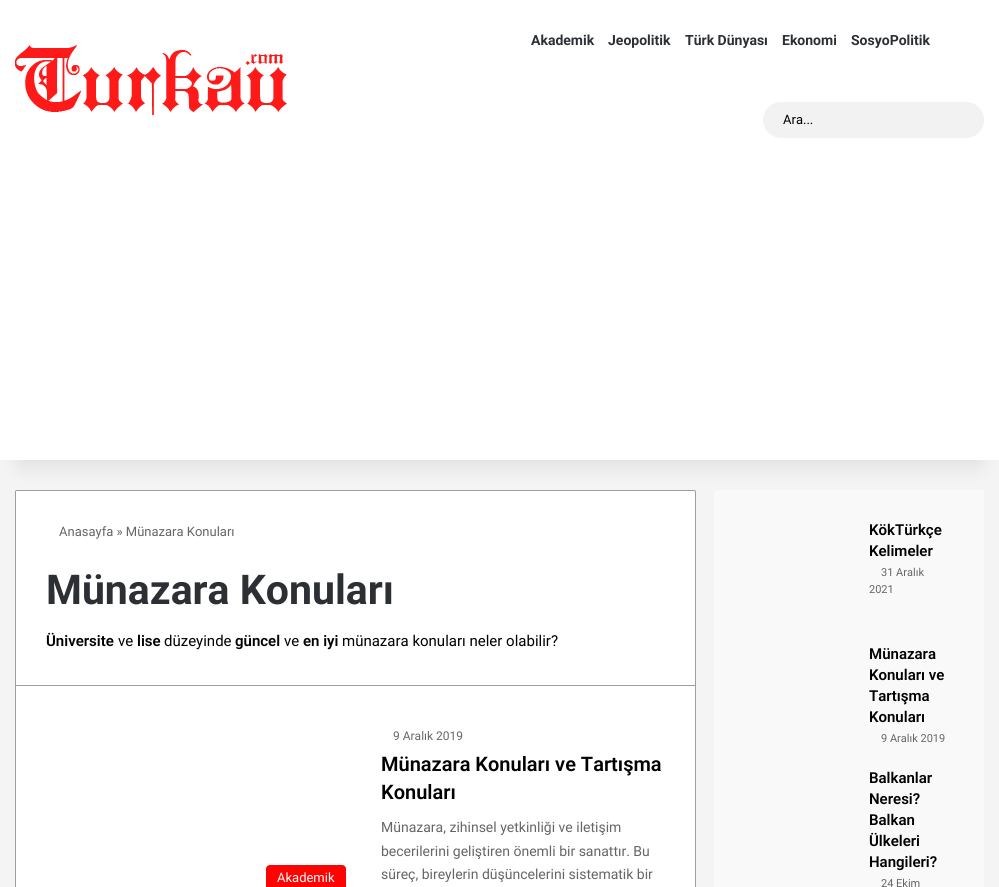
import math
import cairo

surface = cairo.ImageSurface(cairo.FORMAT_RGB24, 999, 887)
ctx = cairo.Context(surface)
options = cairo.FontOptions()
options.set_hint_metrics(cairo.HINT_METRICS_OFF)
options.set_hint_style(cairo.HINT_STYLE_NONE)
ctx.set_font_options(options)
ctx.set_miter_limit(4)


def set_color(code):
    ctx.set_source_rgb(*(v / 255 for v in bytes.fromhex(code[-6:])))


def draw_text(x, y, s, family, size, color, bold=False, italic=False):
    ctx.select_font_face(family, cairo.FONT_SLANT_ITALIC if italic else cairo.FONT_SLANT_NORMAL, cairo.FONT_WEIGHT_BOLD if bold else cairo.FONT_WEIGHT_NORMAL)
    ctx.set_font_size(size)
    set_color(color)
    ctx.move_to(x, y)
    ctx.show_text(s)


def fill_rect(x, y, w, h, color):
    set_color(color)
    ctx.rectangle(x, y, w, h)
    ctx.fill()


def rounded_rect(x, y, w, h, r):
    ctx.new_sub_path()
    for i, (u, v) in enumerate([(x + w - r, y + h - r), (x + r, y + h - r), (x + r, y + r), (x + w - r, y + r)]):
        ctx.arc(u, v, r, i * math.pi / 2, (i + 1) * math.pi / 2)
    ctx.close_path()


def draw_shadow(x, y, w, h, r, blur, alpha):
    ctx.push_group_with_content(cairo.CONTENT_ALPHA)
    ctx.set_operator(cairo.OPERATOR_SOURCE)
    for i in range(15, -16, -2):
        e = blur * i / 6
        if min(w, h) + 2 * e > 0:
            ctx.set_source_rgba(0, 0, 0, alpha * math.erfc((i - 1) / 8.5) / 2)
            rounded_rect(x - e, y - e, w + 2 * e, h + 2 * e, max(0, min(r + e + blur * .6, min(w, h) / 2 + e)))
            ctx.fill()
    ctx.mask(ctx.pop_group())


def draw_image(path, x, y, w, h):
    ctx.save()
    ctx.set_source_surface(cairo.ImageSurface.create_from_png(path), x, y)
    ctx.rectangle(x, y, w, h)
    ctx.fill()
    ctx.restore()


set_color("#f4f4f4")
ctx.paint()
set_color("#ffffff")
ctx.new_path()
ctx.move_to(17, 490.5)
ctx.line_to(694, 490.5)
ctx.curve_to(695, 490.5, 695.5, 491, 695.5, 492)
ctx.line_to(695.5, 685.5)
ctx.line_to(15.5, 685.5)
ctx.line_to(15.5, 492)
ctx.curve_to(15.5, 491, 16, 490.5, 17, 490.5)
ctx.close_path()
ctx.fill_preserve()
set_color("#9e9e9e")
ctx.set_line_width(1)
ctx.stroke()
set_color("#f9f9f9")
rounded_rect(714, 490, 270, 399, 2)
ctx.fill()
set_color("#000000")
draw_shadow(20, 45, 959, 420, 0, 10, 0.1)
fill_rect(0, 0, 999, 460, "#ffffff")
draw_image("assets/img1.png", 15, 45, 272, 70)
draw_text(531, 45, "Akademik", "Roboto", 14, "#2c2f34", bold=True)
draw_text(608, 45, "Jeopolitik", "Roboto", 14, "#2c2f34", bold=True)
draw_text(685, 45, "Türk Dünyası", "Roboto", 14, "#2c2f34", bold=True)
draw_text(782, 45, "Ekonomi", "Roboto", 14, "#2c2f34", bold=True)
draw_text(851, 45, "SosyoPolitik", "Roboto", 14, "#2c2f34", bold=True)
set_color("#f2f2f2")
rounded_rect(763, 102, 221, 36, 18)
ctx.fill()
draw_text(783, 124, "Ara...", "Roboto", 13, "#000000")
draw_text(59, 536, "Anasayfa » Münazara Konuları", "Roboto", 13, "#666666")
draw_text(46, 604, "Münazara Konuları", "Roboto", 41, "#2c2f34", bold=True)
draw_text(46, 646, "Üniversite", "Roboto SemiBold", 15, "#000000")
draw_text(118, 646, "ve", "Roboto", 15, "#000000")
draw_text(137, 646, "lise", "Roboto SemiBold", 15, "#000000")
draw_text(164, 646, "düzeyinde", "Roboto", 15, "#000000")
draw_text(235, 646, "güncel", "Roboto SemiBold", 15, "#000000")
draw_text(284, 646, "ve", "Roboto", 15, "#000000")
draw_text(303, 646, "en iyi", "Roboto SemiBold", 15, "#000000")
draw_text(342, 646, "münazara konuları neler olabilir?", "Roboto", 15, "#000000")
fill_rect(16, 686, 679, 201, "#ffffff")
fill_rect(695, 686, 1, 201, "#9f9f9f")
fill_rect(15, 686, 1, 201, "#9f9f9f")
set_color("#ff0202")
rounded_rect(266, 865, 80, 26, 4)
ctx.fill()
draw_text(277, 882, "Akademik", "Roboto", 13, "#ffffff")
draw_text(393, 740, "9 Aralık 2019", "Roboto", 12, "#666666")
draw_text(381, 771, "Münazara Konuları ve Tartışma", "Roboto SemiBold", 20, "#000000")
draw_text(381, 799, "Konuları", "Roboto SemiBold", 20, "#000000")
draw_text(381, 832, "Münazara, zihinsel yetkinliği ve iletişim", "Roboto", 14, "#666666")
draw_text(381, 856, "becerilerini geliştiren önemli bir sanattır. Bu", "Roboto", 14, "#666666")
draw_text(381, 879, "süreç, bireylerin düşüncelerini sistematik bir", "Roboto", 14, "#666666")
draw_text(869, 535, "KökTürkçe", "Roboto SemiBold", 15, "#000000")
draw_text(869, 556, "Kelimeler", "Roboto SemiBold", 15, "#000000")
draw_text(881, 576, "31 Aralık", "Roboto", 11, "#666666")
draw_text(869, 593, "2021", "Roboto", 11, "#666666")
draw_text(869, 659, "Münazara", "Roboto SemiBold", 15, "#000000")
draw_text(869, 680, "Konuları ve", "Roboto SemiBold", 15, "#000000")
draw_text(869, 701, "Tartışma", "Roboto SemiBold", 15, "#000000")
draw_text(869, 722, "Konuları", "Roboto SemiBold", 15, "#000000")
draw_text(881, 742, "9 Aralık 2019", "Roboto", 11, "#666666")
draw_text(869, 783, "Balkanlar", "Roboto SemiBold", 15, "#000000")
draw_text(869, 804, "Neresi?", "Roboto SemiBold", 15, "#000000")
draw_text(869, 825, "Balkan", "Roboto SemiBold", 15, "#000000")
draw_text(869, 846, "Ülkeleri", "Roboto SemiBold", 15, "#000000")
draw_text(869, 867, "Hangileri?", "Roboto SemiBold", 15, "#000000")
draw_text(881, 887, "24 Ekim", "Roboto", 11, "#666666")
surface.write_to_png("output.png")
